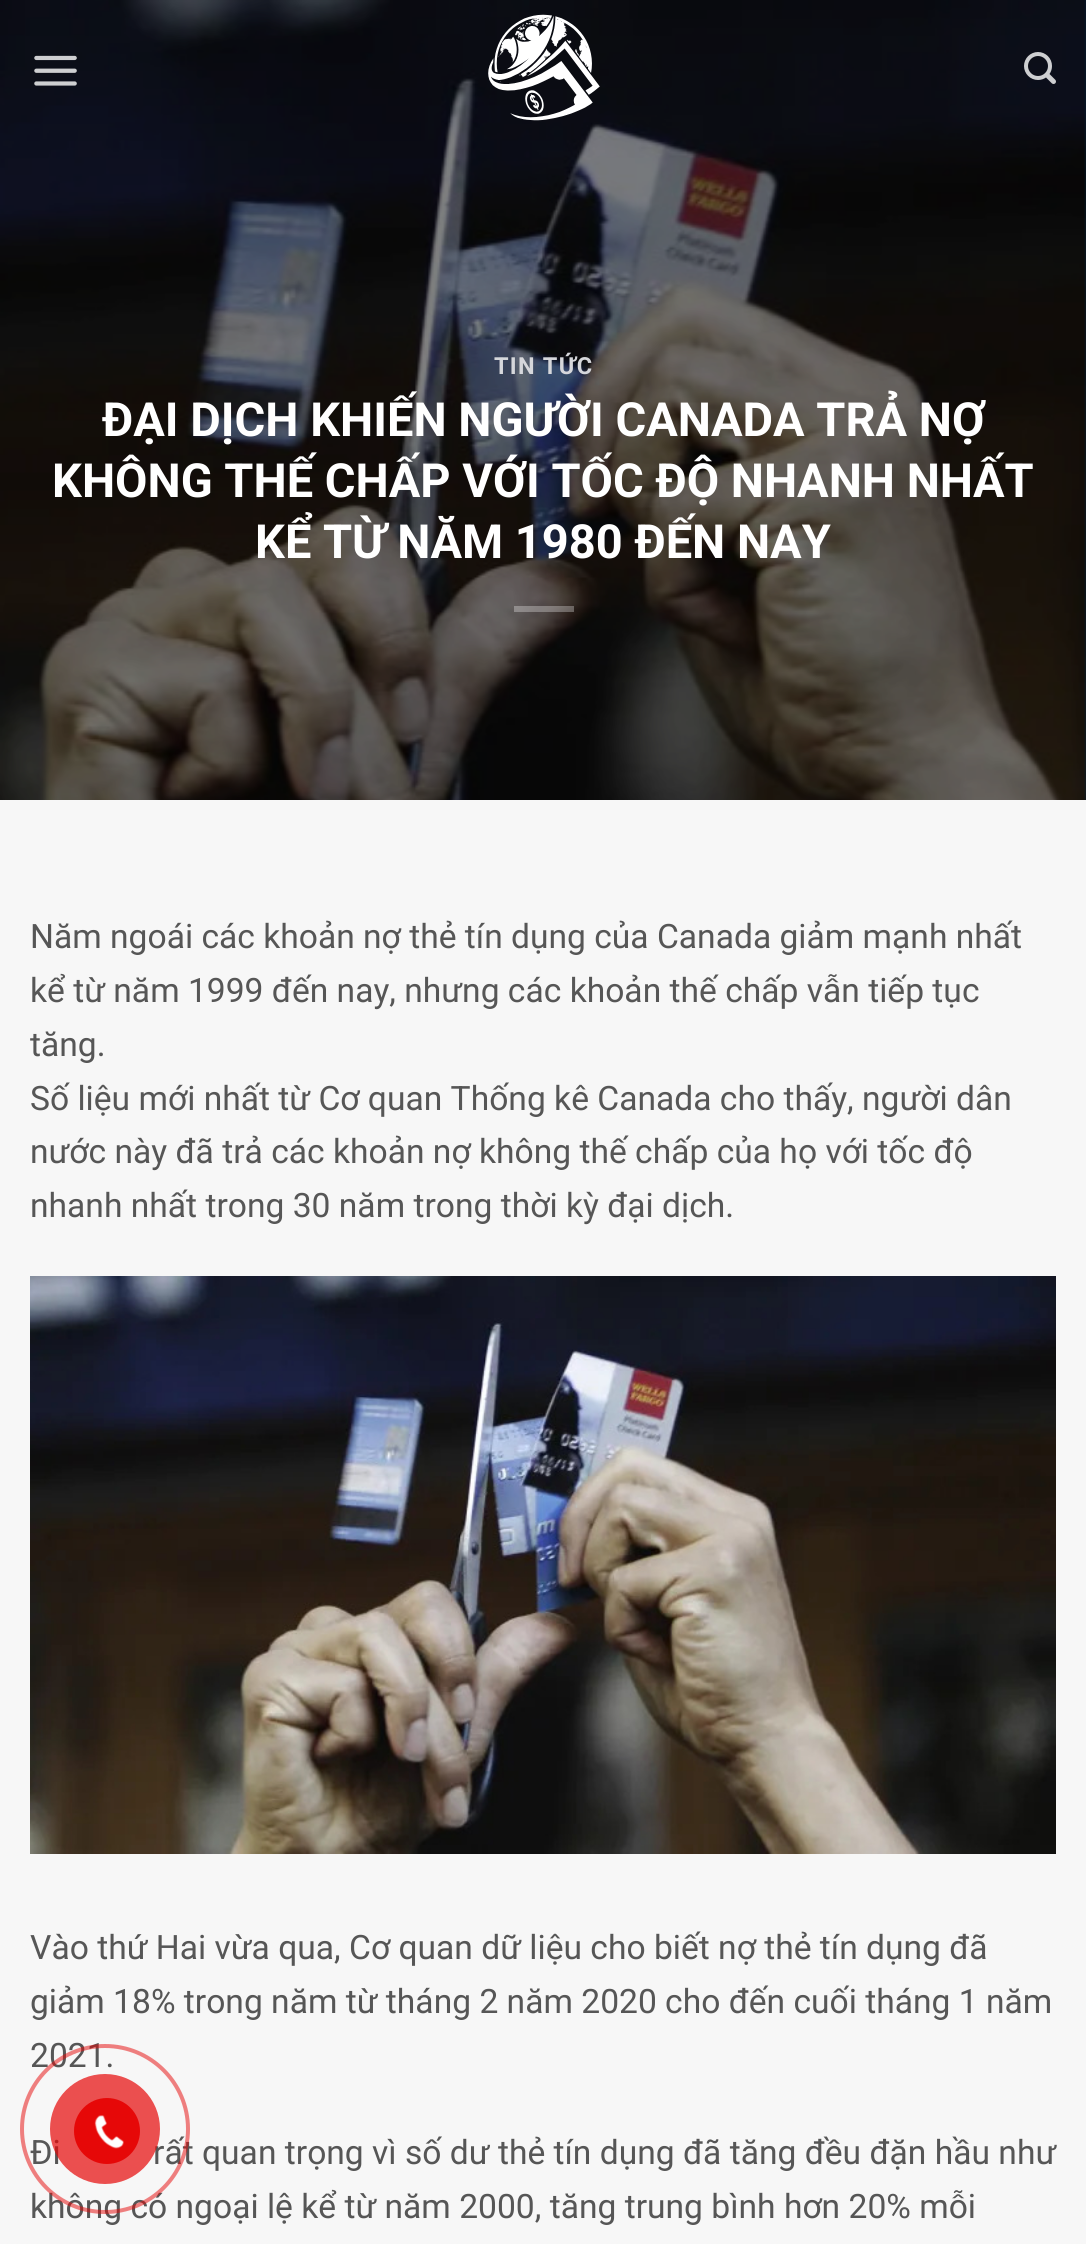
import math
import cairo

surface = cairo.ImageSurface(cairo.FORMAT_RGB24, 1086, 2244)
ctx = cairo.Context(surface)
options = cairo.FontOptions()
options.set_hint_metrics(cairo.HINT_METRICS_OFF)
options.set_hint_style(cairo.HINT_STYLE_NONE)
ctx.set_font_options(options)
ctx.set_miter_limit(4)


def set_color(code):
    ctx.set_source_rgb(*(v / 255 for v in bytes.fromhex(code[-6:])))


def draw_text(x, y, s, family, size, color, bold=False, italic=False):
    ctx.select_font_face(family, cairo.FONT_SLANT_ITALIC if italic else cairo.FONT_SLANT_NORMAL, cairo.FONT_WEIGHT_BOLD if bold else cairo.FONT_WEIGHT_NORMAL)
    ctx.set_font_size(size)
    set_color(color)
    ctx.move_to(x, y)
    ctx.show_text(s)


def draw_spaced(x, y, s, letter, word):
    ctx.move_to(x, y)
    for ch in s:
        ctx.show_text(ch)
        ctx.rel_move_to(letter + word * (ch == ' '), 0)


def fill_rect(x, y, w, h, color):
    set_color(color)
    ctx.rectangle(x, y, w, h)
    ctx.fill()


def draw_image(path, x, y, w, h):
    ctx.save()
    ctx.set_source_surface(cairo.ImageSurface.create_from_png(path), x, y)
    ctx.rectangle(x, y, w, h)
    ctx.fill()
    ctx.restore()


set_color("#02203a")
ctx.paint()
draw_image("assets/img4.png", 0, 0, 1086, 800)
draw_image("assets/img1.png", 34, 55, 43, 31)
draw_image("assets/img2.png", 488, 14, 112, 107)
draw_image("assets/img3.png", 1024, 52, 32, 32)
ctx.select_font_face("Roboto", cairo.FONT_SLANT_NORMAL, cairo.FONT_WEIGHT_BOLD)
ctx.set_font_size(23.5)
set_color("#d6d7db")
draw_spaced(494, 374, "TIN TỨC", 1.25, 0)
draw_text(102, 436, "ĐẠI DỊCH KHIẾN NGƯỜI CANADA TRẢ NỢ", "Roboto", 47, "#ffffff", bold=True)
draw_text(52, 497, "KHÔNG THẾ CHẤP VỚI TỐC ĐỘ NHANH NHẤT", "Roboto", 47, "#ffffff", bold=True)
draw_text(255, 558, "KỂ TỪ NĂM 1980 ĐẾN NAY", "Roboto", 47, "#ffffff", bold=True)
ctx.set_source_rgba(1, 1, 1, 0.3)
ctx.rectangle(514, 606, 60, 6)
ctx.fill()
fill_rect(0, 800, 1086, 1444, "#f7f7f7")
draw_text(30, 948, "Năm ngoái các khoản nợ thẻ tín dụng của Canada giảm mạnh nhất", "Roboto", 33.6, "#565656")
draw_text(30, 1002, "kể từ năm 1999 đến nay, nhưng các khoản thế chấp vẫn tiếp tục", "Roboto", 33.6, "#565656")
draw_text(30, 1056, "tăng.", "Roboto", 33.6, "#565656")
draw_text(30, 1110, "Số liệu mới nhất từ Cơ quan Thống kê Canada cho thấy, người dân", "Roboto", 33.6, "#565656")
draw_text(30, 1163, "nước này đã trả các khoản nợ không thế chấp của họ với tốc độ", "Roboto", 33.6, "#565656")
draw_text(30, 1217, "nhanh nhất trong 30 năm trong thời kỳ đại dịch.", "Roboto", 33.6, "#565656")
draw_image("assets/img5.png", 30, 1276, 1026, 578)
draw_text(30, 1959, "Vào thứ Hai vừa qua, Cơ quan dữ liệu cho biết nợ thẻ tín dụng đã", "Roboto", 33.6, "#565656")
draw_text(30, 2013, "giảm 18% trong năm từ tháng 2 năm 2020 cho đến cuối tháng 1 năm", "Roboto", 33.6, "#565656")
draw_text(30, 2067, "2021.", "Roboto", 33.6, "#565656")
draw_text(30, 2164, "Đi", "Roboto", 33.6, "#565656")
draw_text(153, 2164, "rất quan trọng vì số dư thẻ tín dụng đã tăng đều đặn hầu như", "Roboto", 33.6, "#565656")
draw_text(30, 2218, "không có ngoại lệ kể từ năm 2000, tăng trung bình hơn 20% mỗi", "Roboto", 33.6, "#565656")
ctx.new_path()
ctx.arc(105, 2129, 83, 0, 2 * math.pi)
ctx.set_source_rgba(0.902, 0.031, 0.031, 0.5)
ctx.set_line_width(4)
ctx.stroke()
ctx.set_source_rgba(0.902, 0.031, 0.031, 0.7)
ctx.arc(105, 2129, 55, 0, 2 * math.pi)
ctx.fill()
set_color("#e60808")
ctx.arc(107, 2131, 33, 0, 2 * math.pi)
ctx.fill()
draw_image("assets/img6.png", 94, 2115, 30, 34)
surface.write_to_png("output.png")
